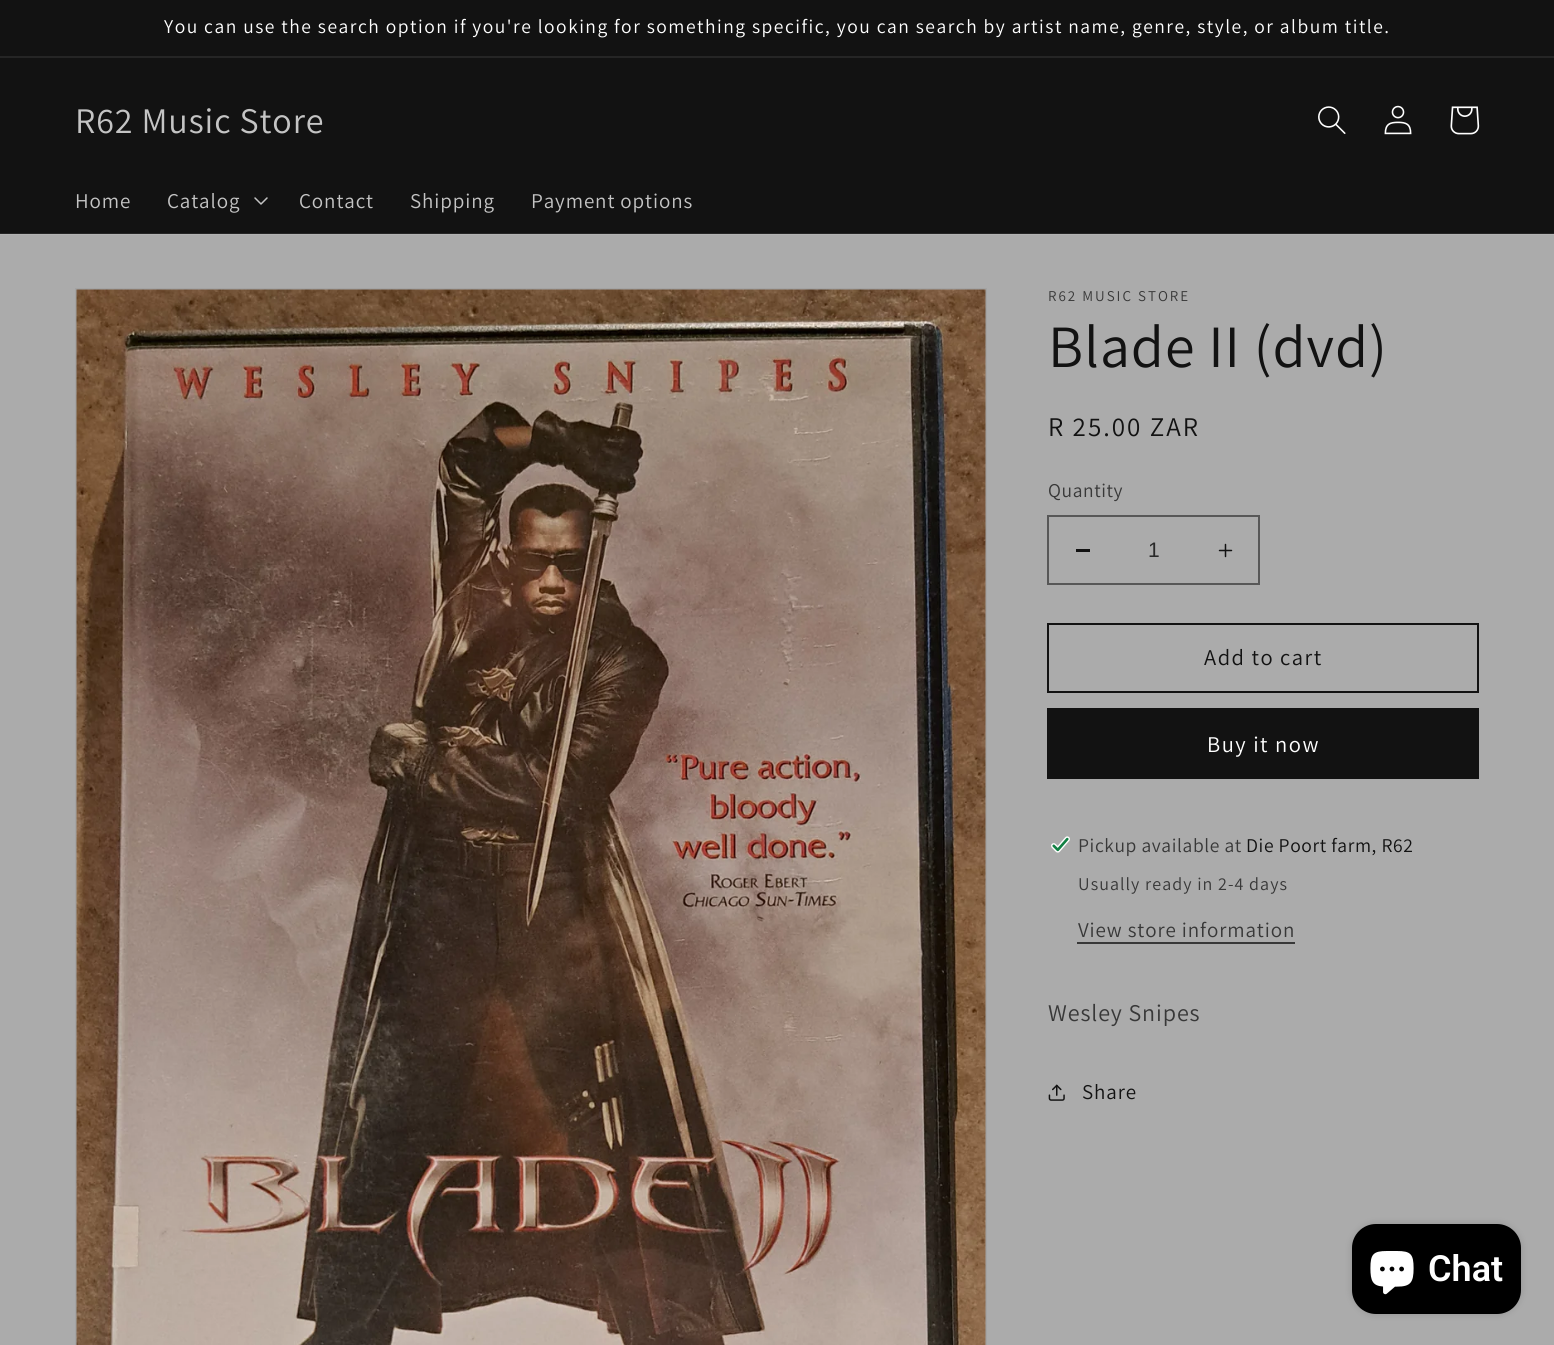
import math
import cairo

surface = cairo.ImageSurface(cairo.FORMAT_RGB24, 1554, 1345)
ctx = cairo.Context(surface)
options = cairo.FontOptions()
options.set_hint_metrics(cairo.HINT_METRICS_OFF)
options.set_hint_style(cairo.HINT_STYLE_NONE)
ctx.set_font_options(options)
ctx.set_miter_limit(4)


def set_color(code):
    ctx.set_source_rgb(*(v / 255 for v in bytes.fromhex(code[-6:])))


def draw_text(x, y, s, family, size, color, bold=False, italic=False):
    ctx.select_font_face(family, cairo.FONT_SLANT_ITALIC if italic else cairo.FONT_SLANT_NORMAL, cairo.FONT_WEIGHT_BOLD if bold else cairo.FONT_WEIGHT_NORMAL)
    ctx.set_font_size(size)
    set_color(color)
    ctx.move_to(x, y)
    ctx.show_text(s)


def draw_spaced(x, y, s, letter, word):
    ctx.move_to(x, y)
    for ch in s:
        ctx.show_text(ch)
        ctx.rel_move_to(letter + word * (ch == ' '), 0)


def fill_rect(x, y, w, h, color):
    set_color(color)
    ctx.rectangle(x, y, w, h)
    ctx.fill()


def rounded_rect(x, y, w, h, r):
    ctx.new_sub_path()
    for i, (u, v) in enumerate([(x + w - r, y + h - r), (x + r, y + h - r), (x + r, y + r), (x + w - r, y + r)]):
        ctx.arc(u, v, r, i * math.pi / 2, (i + 1) * math.pi / 2)
    ctx.close_path()


def draw_shadow(x, y, w, h, r, blur, alpha):
    ctx.push_group_with_content(cairo.CONTENT_ALPHA)
    ctx.set_operator(cairo.OPERATOR_SOURCE)
    for i in range(15, -16, -2):
        e = blur * i / 6
        if min(w, h) + 2 * e > 0:
            ctx.set_source_rgba(0, 0, 0, alpha * math.erfc((i - 1) / 8.5) / 2)
            rounded_rect(x - e, y - e, w + 2 * e, h + 2 * e, max(0, min(r + e + blur * .6, min(w, h) / 2 + e)))
            ctx.fill()
    ctx.mask(ctx.pop_group())


def draw_image(path, x, y, w, h):
    ctx.save()
    ctx.set_source_surface(cairo.ImageSurface.create_from_png(path), x, y)
    ctx.rectangle(x, y, w, h)
    ctx.fill()
    ctx.restore()


set_color("#ababab")
ctx.paint()
fill_rect(0, 234, 1554, 1, "#b2b2b2")
fill_rect(0, 0, 1554, 56, "#121212")
fill_rect(0, 56, 1554, 2, "#252525")
ctx.select_font_face("Assistant")
ctx.set_font_size(19.5)
set_color("#ffffff")
draw_spaced(164, 33, "You can use the search option if you're looking for something specific, you can search by artist name, genre, style, or album title.", 1.5, 0)
fill_rect(0, 58, 1554, 175, "#121212")
fill_rect(0, 233, 1554, 1, "#252525")
ctx.set_font_size(36)
set_color("#c4c4c4")
draw_spaced(75, 133, "R62 Music Store", 0.9, 0)
draw_image("assets/img1.png", 1318, 106, 28, 28)
draw_image("assets/img2.png", 1384, 105, 28, 30)
draw_image("assets/img3.png", 1450, 106, 30, 29)
ctx.set_font_size(21)
draw_spaced(75, 208, "Home", 0.9, 0)
draw_spaced(167, 208, "Catalog", 0.9, 0)
draw_image("assets/img4.png", 254, 197, 14, 8)
draw_spaced(299, 208, "Contact", 0.9, 0)
draw_spaced(410, 208, "Shipping", 0.9, 0)
draw_spaced(531, 208, "Payment options", 0.9, 0)
ctx.rectangle(76, 289, 910, 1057)
set_color("#a3a3a3")
ctx.stroke()
draw_image("assets/img5.png", 76, 289, 910, 1056)
ctx.set_font_size(15)
set_color("#383838")
draw_spaced(1048, 301, "R62 MUSIC STORE", 2, 0)
ctx.set_font_size(60)
set_color("#121212")
draw_spaced(1048, 367, "Blade II (dvd)", 0.9, 0)
ctx.set_font_size(27)
draw_spaced(1048, 436, "R 25.00 ZAR", 2, 0)
ctx.set_font_size(19.5)
set_color("#383838")
draw_spaced(1048, 497, "Quantity", 0.6, 0)
fill_rect(1076, 549, 14, 3, "#121212")
draw_image("assets/img6.png", 1218, 543, 15, 15)
ctx.rectangle(1048, 516, 211, 68)
set_color("#575757")
ctx.stroke()
draw_text(1148, 557, "1", "Liberation Sans", 21, "#292929")
ctx.rectangle(1048, 624, 430, 68)
set_color("#121212")
ctx.stroke()
ctx.select_font_face("Assistant")
ctx.set_font_size(22.5)
draw_spaced(1204, 665, "Add to cart", 1.5, 0)
fill_rect(1047, 708, 432, 71, "#121212")
set_color("#ffffff")
draw_spaced(1207, 752, "Buy it now", 1.5, 0)
draw_image("assets/img7.png", 1051, 836, 19, 17)
ctx.set_font_size(19.5)
set_color("#383838")
draw_spaced(1078, 852, "Pickup available at", 0.6, 0)
set_color("#121212")
draw_spaced(1246, 852, "Die Poort farm, R62", 0.6, 0)
ctx.set_font_size(18)
set_color("#383838")
draw_spaced(1078, 890, "Usually ready in 2-4 days", 1.05, 0)
ctx.set_font_size(21)
draw_spaced(1078, 937, "View store information", 0.9, 0)
fill_rect(1077, 942, 218, 2, "#383838")
ctx.set_font_size(24)
draw_spaced(1048, 1021, "Wesley Snipes", 0.9, 0)
draw_image("assets/img8.png", 1048, 1084, 17, 17)
ctx.set_font_size(21)
set_color("#121212")
draw_spaced(1082, 1099, "Share", 0.9, 0)
set_color("#000000")
draw_shadow(1352, 1224, 169, 90, 24, 4, 0.15)
set_color("#000000")
rounded_rect(1352, 1224, 169, 90, 24)
ctx.fill()
draw_image("assets/img9.png", 1370, 1251, 44, 44)
draw_text(1428, 1281, "Chat", "Roboto SemiBold", 36, "#ffffff")
surface.write_to_png("output.png")
